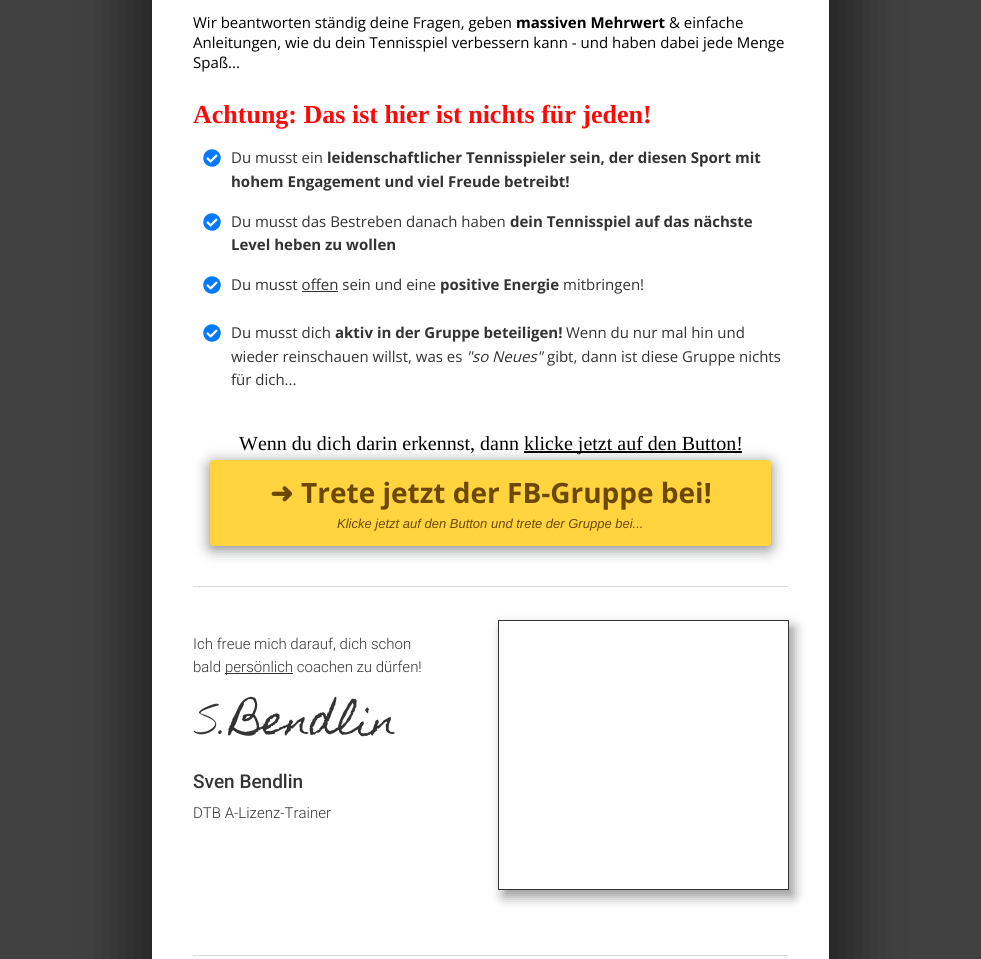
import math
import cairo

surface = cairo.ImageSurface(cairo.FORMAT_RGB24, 981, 959)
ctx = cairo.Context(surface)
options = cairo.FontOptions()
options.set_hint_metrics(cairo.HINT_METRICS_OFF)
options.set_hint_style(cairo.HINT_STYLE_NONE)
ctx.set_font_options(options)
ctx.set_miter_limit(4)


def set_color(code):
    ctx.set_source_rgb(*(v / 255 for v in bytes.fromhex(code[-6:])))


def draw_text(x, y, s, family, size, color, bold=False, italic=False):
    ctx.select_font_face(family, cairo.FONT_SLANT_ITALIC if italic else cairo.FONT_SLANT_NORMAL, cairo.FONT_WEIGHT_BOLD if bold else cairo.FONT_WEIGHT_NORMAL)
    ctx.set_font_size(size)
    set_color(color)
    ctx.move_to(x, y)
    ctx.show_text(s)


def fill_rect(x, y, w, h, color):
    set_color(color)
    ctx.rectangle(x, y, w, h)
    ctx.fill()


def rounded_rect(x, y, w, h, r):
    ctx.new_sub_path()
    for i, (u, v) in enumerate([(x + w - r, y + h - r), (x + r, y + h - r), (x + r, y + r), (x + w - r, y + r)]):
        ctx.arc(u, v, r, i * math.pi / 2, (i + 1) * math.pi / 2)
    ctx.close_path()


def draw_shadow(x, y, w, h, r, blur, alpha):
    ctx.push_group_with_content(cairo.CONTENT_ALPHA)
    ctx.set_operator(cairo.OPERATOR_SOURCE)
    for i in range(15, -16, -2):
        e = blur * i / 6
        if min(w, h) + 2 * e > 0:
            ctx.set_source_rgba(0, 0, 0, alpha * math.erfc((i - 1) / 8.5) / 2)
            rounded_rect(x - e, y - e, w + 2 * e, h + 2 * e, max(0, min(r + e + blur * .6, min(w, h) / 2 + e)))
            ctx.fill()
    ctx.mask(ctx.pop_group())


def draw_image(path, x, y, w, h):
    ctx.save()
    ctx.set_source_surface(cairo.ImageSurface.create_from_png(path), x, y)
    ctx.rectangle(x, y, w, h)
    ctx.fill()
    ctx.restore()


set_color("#414141")
ctx.paint()
set_color("#000000")
draw_shadow(122, -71, 737, 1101, 0, 23.5, 0.4)
fill_rect(152, 0, 677, 959, "#ffffff")
draw_text(193, 28, "Wir beantworten ständig deine Fragen, geben", "Open Sans", 15, "#000000")
draw_text(516, 28, "massiven Mehrwert", "Open Sans", 15, "#000000", bold=True)
draw_text(669, 28, "& einfache", "Open Sans", 15, "#000000")
draw_text(193, 48, "Anleitungen, wie du dein Tennisspiel verbessern kann - und haben dabei jede Menge", "Open Sans", 15, "#000000")
draw_text(193, 68, "Spaß...", "Open Sans", 15, "#000000")
draw_text(193, 123, "Achtung: Das ist hier ist nichts für jeden!", "Liberation Serif", 26, "#ff0808", bold=True)
draw_image("assets/img1.png", 203, 149, 18, 18)
draw_text(231, 163, "Du musst ein", "Open Sans", 15, "#333333")
draw_text(327, 163, "leidenschaftlicher Tennisspieler sein, der diesen Sport mit", "Open Sans", 15, "#333333", bold=True)
draw_text(231, 187, "hohem Engagement und viel Freude betreibt!", "Open Sans", 15, "#333333", bold=True)
draw_image("assets/img1.png", 203, 213, 18, 18)
draw_text(231, 227, "Du musst das Bestreben danach haben", "Open Sans", 15, "#333333")
draw_text(510, 227, "dein Tennisspiel auf das nächste", "Open Sans", 15, "#333333", bold=True)
draw_text(231, 250, "Level heben zu wollen", "Open Sans", 15, "#333333", bold=True)
draw_image("assets/img1.png", 203, 276, 18, 18)
draw_text(231, 290, "Du musst offen sein und eine", "Open Sans", 15, "#333333")
fill_rect(302, 291, 36, 1, "#333333")
draw_text(440, 290, "positive Energie", "Open Sans", 15, "#333333", bold=True)
draw_text(563, 290, "mitbringen!", "Open Sans", 15, "#333333")
draw_image("assets/img1.png", 203, 324, 18, 18)
draw_text(231, 338, "Du musst dich", "Open Sans", 15, "#333333")
draw_text(335, 338, "aktiv in der Gruppe beteiligen!", "Open Sans", 15, "#333333", bold=True)
draw_text(566, 338, "Wenn du nur mal hin und", "Open Sans", 15, "#333333")
draw_text(231, 362, "wieder reinschauen willst, was es", "Open Sans", 15, "#333333")
draw_text(466, 362, "\"so Neues\"", "Open Sans", 15, "#333333", italic=True)
draw_text(547, 362, "gibt, dann ist diese Gruppe nichts", "Open Sans", 15, "#333333")
draw_text(231, 385, "für dich...", "Open Sans", 15, "#333333")
draw_text(239, 450, "Wenn du dich darin erkennst, dann", "Liberation Serif", 20, "#000000")
fill_rect(524, 451, 218, 2, "#000000")
draw_text(524, 450, "klicke jetzt auf den Button!", "Liberation Serif", 20, "#000000")
set_color("#000608")
draw_shadow(210, 463, 561, 86, 3, 7.5, 0.5)
set_color("#ffd43f")
rounded_rect(210, 460, 561, 86, 3)
ctx.fill()
draw_text(270, 503, "➜", "DejaVu Sans", 28, "#6d4805", bold=True)
draw_text(301, 503, "Trete jetzt der FB-Gruppe bei!", "Open Sans", 28, "#6d4805", bold=True)
draw_text(337, 528, "Klicke jetzt auf den Button und trete der Gruppe bei...", "Liberation Sans", 13, "#6d4805", italic=True)
fill_rect(193, 586, 595, 1, "#d9d9d9")
draw_text(193, 649, "Ich freue mich darauf, dich schon", "Roboto Light", 15, "#333333")
draw_text(193, 672, "bald", "Roboto Light", 15, "#333333")
fill_rect(225, 673, 68, 1, "#333333")
draw_text(225, 672, "persönlich coachen zu dürfen!", "Roboto Light", 15, "#333333")
draw_text(193, 734, "S.", "Nothing You Could Do Thin", 40, "#333333")
draw_text(232, 734, "Bendlin", "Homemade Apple", 40, "#333333")
draw_text(193, 788, "Sven Bendlin", "Roboto Medium", 19, "#333333")
draw_text(193, 818, "DTB A-Lizenz-Trainer", "Roboto Light", 15, "#333333")
ctx.save()
ctx.set_fill_rule(cairo.FILL_RULE_EVEN_ODD)
ctx.new_path()
ctx.move_to(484, 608)
ctx.line_to(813, 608)
ctx.line_to(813, 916)
ctx.line_to(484, 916)
ctx.close_path()
ctx.move_to(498, 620)
ctx.line_to(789, 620)
ctx.line_to(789, 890)
ctx.line_to(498, 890)
ctx.close_path()
ctx.clip()
set_color("#000000")
draw_shadow(503, 627, 291, 270, 0, 6, 0.4)
ctx.restore()
ctx.rectangle(498.5, 620.5, 290, 269)
ctx.set_line_width(1)
ctx.stroke()
fill_rect(193, 955, 595, 1, "#d9d9d9")
surface.write_to_png("output.png")
